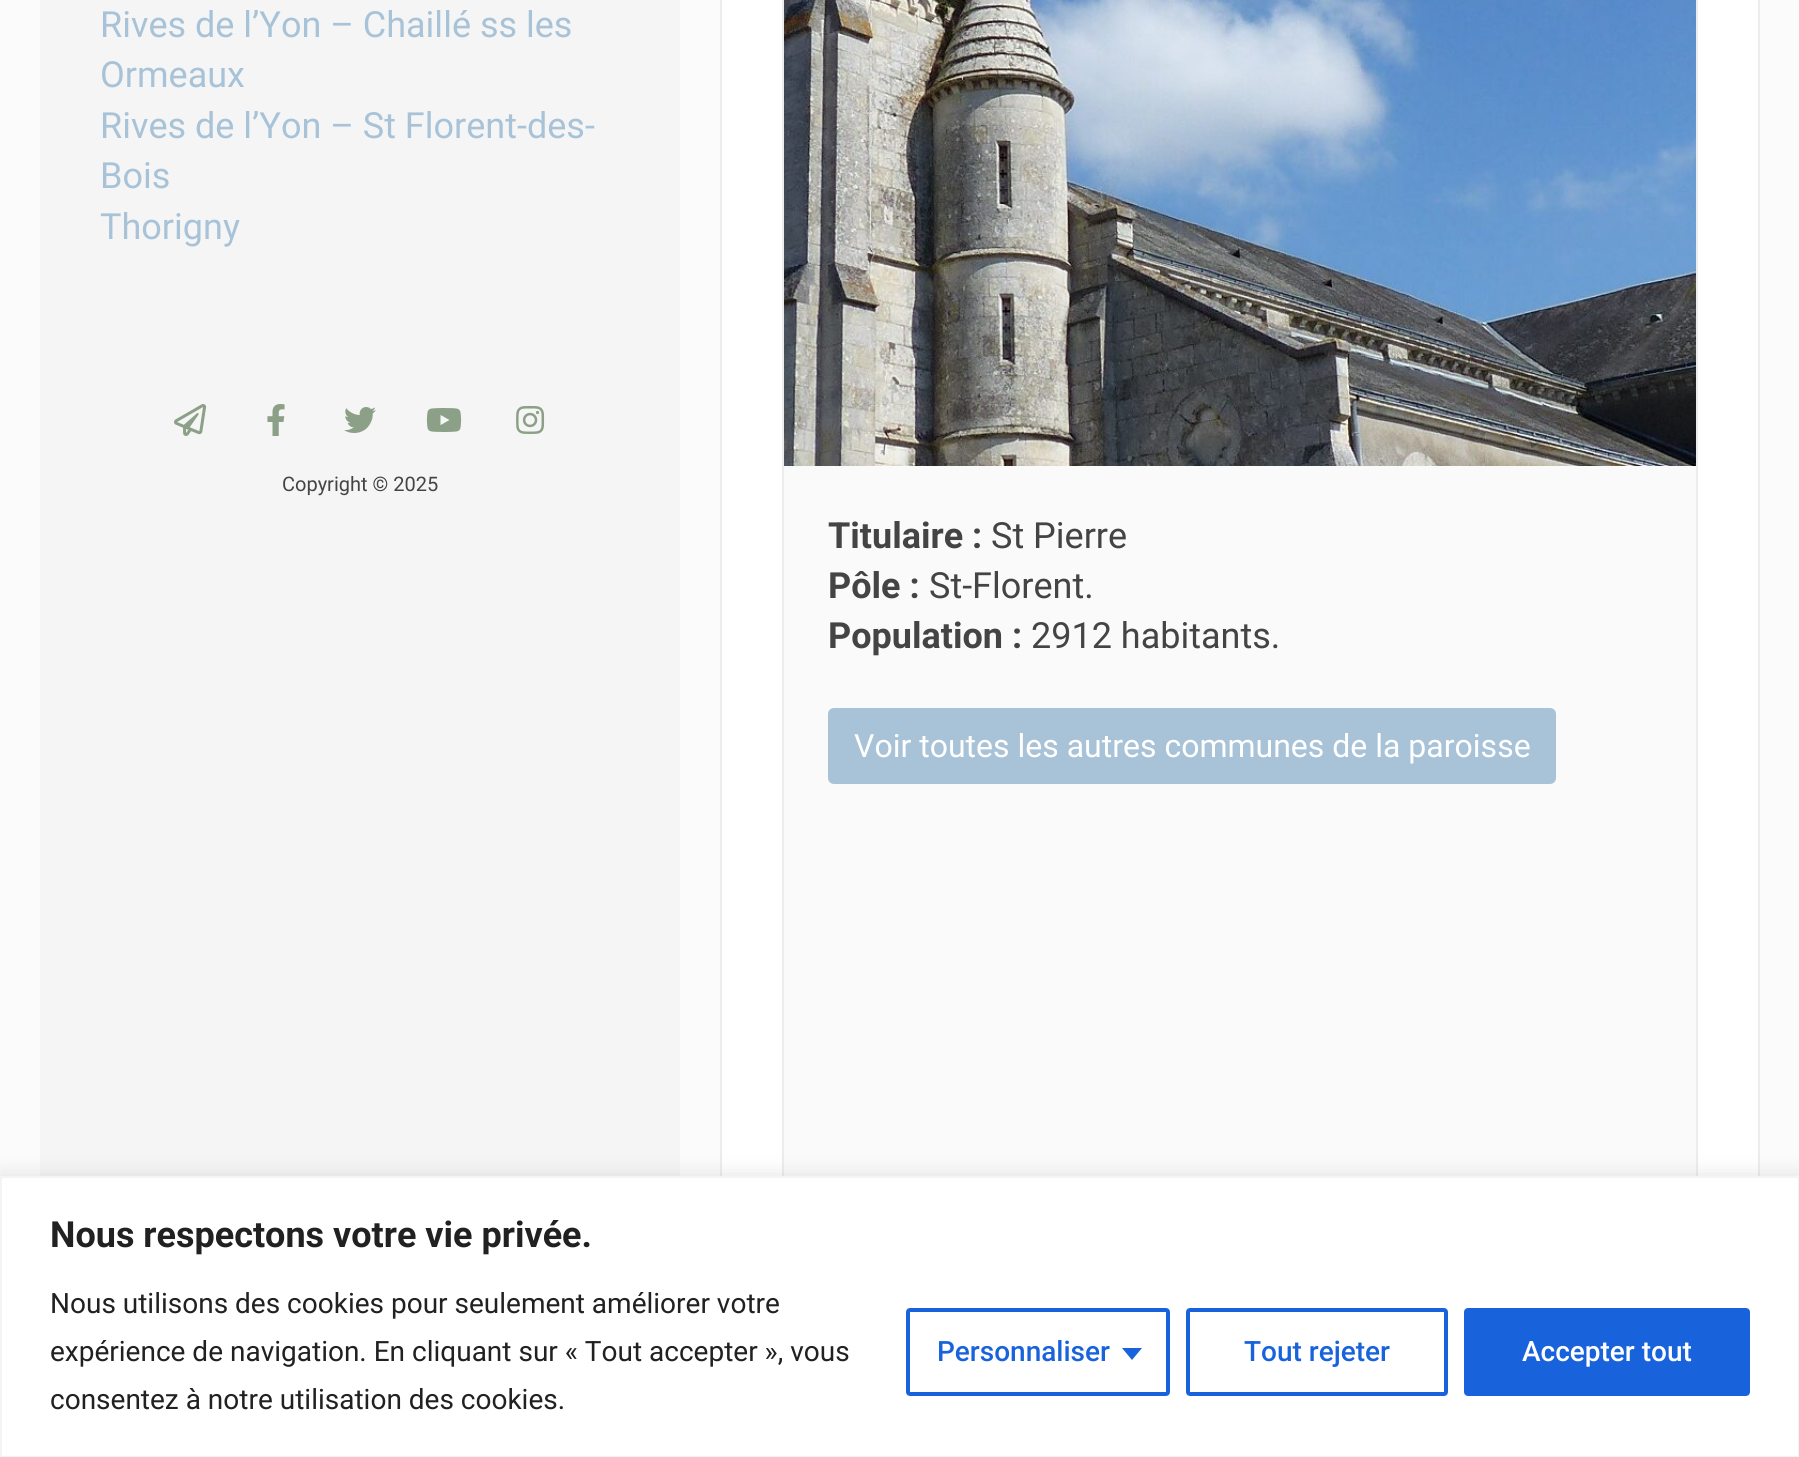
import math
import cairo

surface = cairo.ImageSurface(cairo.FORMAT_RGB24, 1799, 1457)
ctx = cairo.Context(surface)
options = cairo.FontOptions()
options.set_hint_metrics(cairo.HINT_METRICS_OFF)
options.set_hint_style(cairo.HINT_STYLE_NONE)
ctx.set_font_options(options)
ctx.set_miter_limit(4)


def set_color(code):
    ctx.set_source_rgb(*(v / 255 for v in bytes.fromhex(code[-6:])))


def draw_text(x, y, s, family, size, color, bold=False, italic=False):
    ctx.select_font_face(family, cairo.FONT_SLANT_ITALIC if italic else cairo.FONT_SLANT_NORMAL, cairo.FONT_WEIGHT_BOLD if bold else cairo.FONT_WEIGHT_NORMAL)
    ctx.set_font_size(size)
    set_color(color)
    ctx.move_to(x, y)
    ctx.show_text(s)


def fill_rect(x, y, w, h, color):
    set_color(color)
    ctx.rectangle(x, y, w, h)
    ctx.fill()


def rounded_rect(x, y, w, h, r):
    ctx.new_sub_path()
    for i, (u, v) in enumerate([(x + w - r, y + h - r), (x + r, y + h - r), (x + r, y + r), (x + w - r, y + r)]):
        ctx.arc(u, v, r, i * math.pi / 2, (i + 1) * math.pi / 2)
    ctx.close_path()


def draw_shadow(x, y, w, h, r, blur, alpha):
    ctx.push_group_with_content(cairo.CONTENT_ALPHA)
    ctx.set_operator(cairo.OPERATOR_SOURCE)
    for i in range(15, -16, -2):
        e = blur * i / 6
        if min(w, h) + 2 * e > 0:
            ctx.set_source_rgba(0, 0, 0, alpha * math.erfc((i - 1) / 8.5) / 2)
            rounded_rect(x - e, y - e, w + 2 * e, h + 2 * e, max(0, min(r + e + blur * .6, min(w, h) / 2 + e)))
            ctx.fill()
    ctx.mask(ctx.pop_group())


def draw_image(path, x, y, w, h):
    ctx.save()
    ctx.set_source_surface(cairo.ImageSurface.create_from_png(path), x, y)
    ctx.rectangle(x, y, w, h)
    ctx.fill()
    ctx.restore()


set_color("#fbfbfb")
ctx.paint()
fill_rect(40, 0, 640, 1176, "#f5f5f5")
draw_text(100, 37, "Rives de l’Yon – Chaillé ss les", "Roboto", 36, "#a8c3d8")
draw_text(100, 87, "Ormeaux", "Roboto", 36, "#a8c3d8")
draw_text(100, 138, "Rives de l’Yon – St Florent-des-", "Roboto", 36, "#a8c3d8")
draw_text(100, 188, "Bois", "Roboto", 36, "#a8c3d8")
draw_text(100, 239, "Thorigny", "Roboto", 36, "#a8c3d8")
draw_image("assets/img1.png", 174, 404, 33, 32)
draw_image("assets/img2.png", 267, 404, 18, 32)
draw_image("assets/img3.png", 344, 407, 32, 26)
draw_image("assets/img4.png", 426, 408, 36, 24)
draw_image("assets/img5.png", 516, 406, 29, 28)
draw_text(282, 491, "Copyright © 2025", "Roboto", 20, "#444444")
fill_rect(722, 0, 1036, 1176, "#ffffff")
ctx.rectangle(721, -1, 1038, 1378)
set_color("#ececec")
ctx.stroke()
fill_rect(784, 466, 912, 710, "#fafafa")
ctx.rectangle(783, -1, 914, 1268)
set_color("#ececec")
ctx.stroke()
draw_image("assets/img6.png", 784, 0, 912, 466)
draw_text(828, 548, "Titulaire :", "Roboto", 36, "#444444", bold=True)
draw_text(991, 548, "St Pierre", "Roboto", 36, "#444444")
draw_text(828, 598, "Pôle :", "Roboto", 36, "#444444", bold=True)
draw_text(929, 598, "St-Florent.", "Roboto", 36, "#444444")
draw_text(828, 648, "Population :", "Roboto", 36, "#444444", bold=True)
draw_text(1031, 648, "2912 habitants.", "Roboto", 36, "#444444")
set_color("#a8c3d8")
rounded_rect(829, 709, 726, 74, 5)
ctx.fill_preserve()
ctx.stroke()
draw_text(854, 757, "Voir toutes les autres communes de la paroisse", "Roboto", 32, "#ffffff")
set_color("#acabab")
draw_shadow(0, 1174, 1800, 282, 0, 10, 0.3)
set_color("#ffffff")
ctx.rectangle(1, 1177, 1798, 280)
ctx.fill_preserve()
set_color("#f4f4f4")
ctx.stroke()
draw_text(50, 1247, "Nous respectons votre vie privée.", "Roboto", 36, "#212121", bold=True)
draw_text(50, 1313, "Nous utilisons des cookies pour seulement améliorer votre", "Roboto", 28, "#212121")
draw_text(50, 1361, "expérience de navigation. En cliquant sur « Tout accepter », vous", "Roboto", 28, "#212121")
draw_text(50, 1409, "consentez à notre utilisation des cookies.", "Roboto", 28, "#212121")
rounded_rect(908, 1310, 260, 84, 2)
set_color("#1863dc")
ctx.set_line_width(4)
ctx.stroke()
draw_text(937, 1361, "Personnaliser", "Roboto Medium", 28, "#1863dc")
ctx.new_path()
ctx.move_to(1122, 1348)
ctx.line_to(1142, 1348)
ctx.line_to(1132, 1360)
ctx.close_path()
ctx.fill()
rounded_rect(1188, 1310, 258, 84, 2)
ctx.stroke()
draw_text(1244, 1361, "Tout rejeter", "Roboto Medium", 28, "#1863dc")
rounded_rect(1466, 1310, 282, 84, 2)
ctx.fill_preserve()
ctx.stroke()
draw_text(1522, 1361, "Accepter tout", "Roboto Medium", 28, "#ffffff")
surface.write_to_png("output.png")
